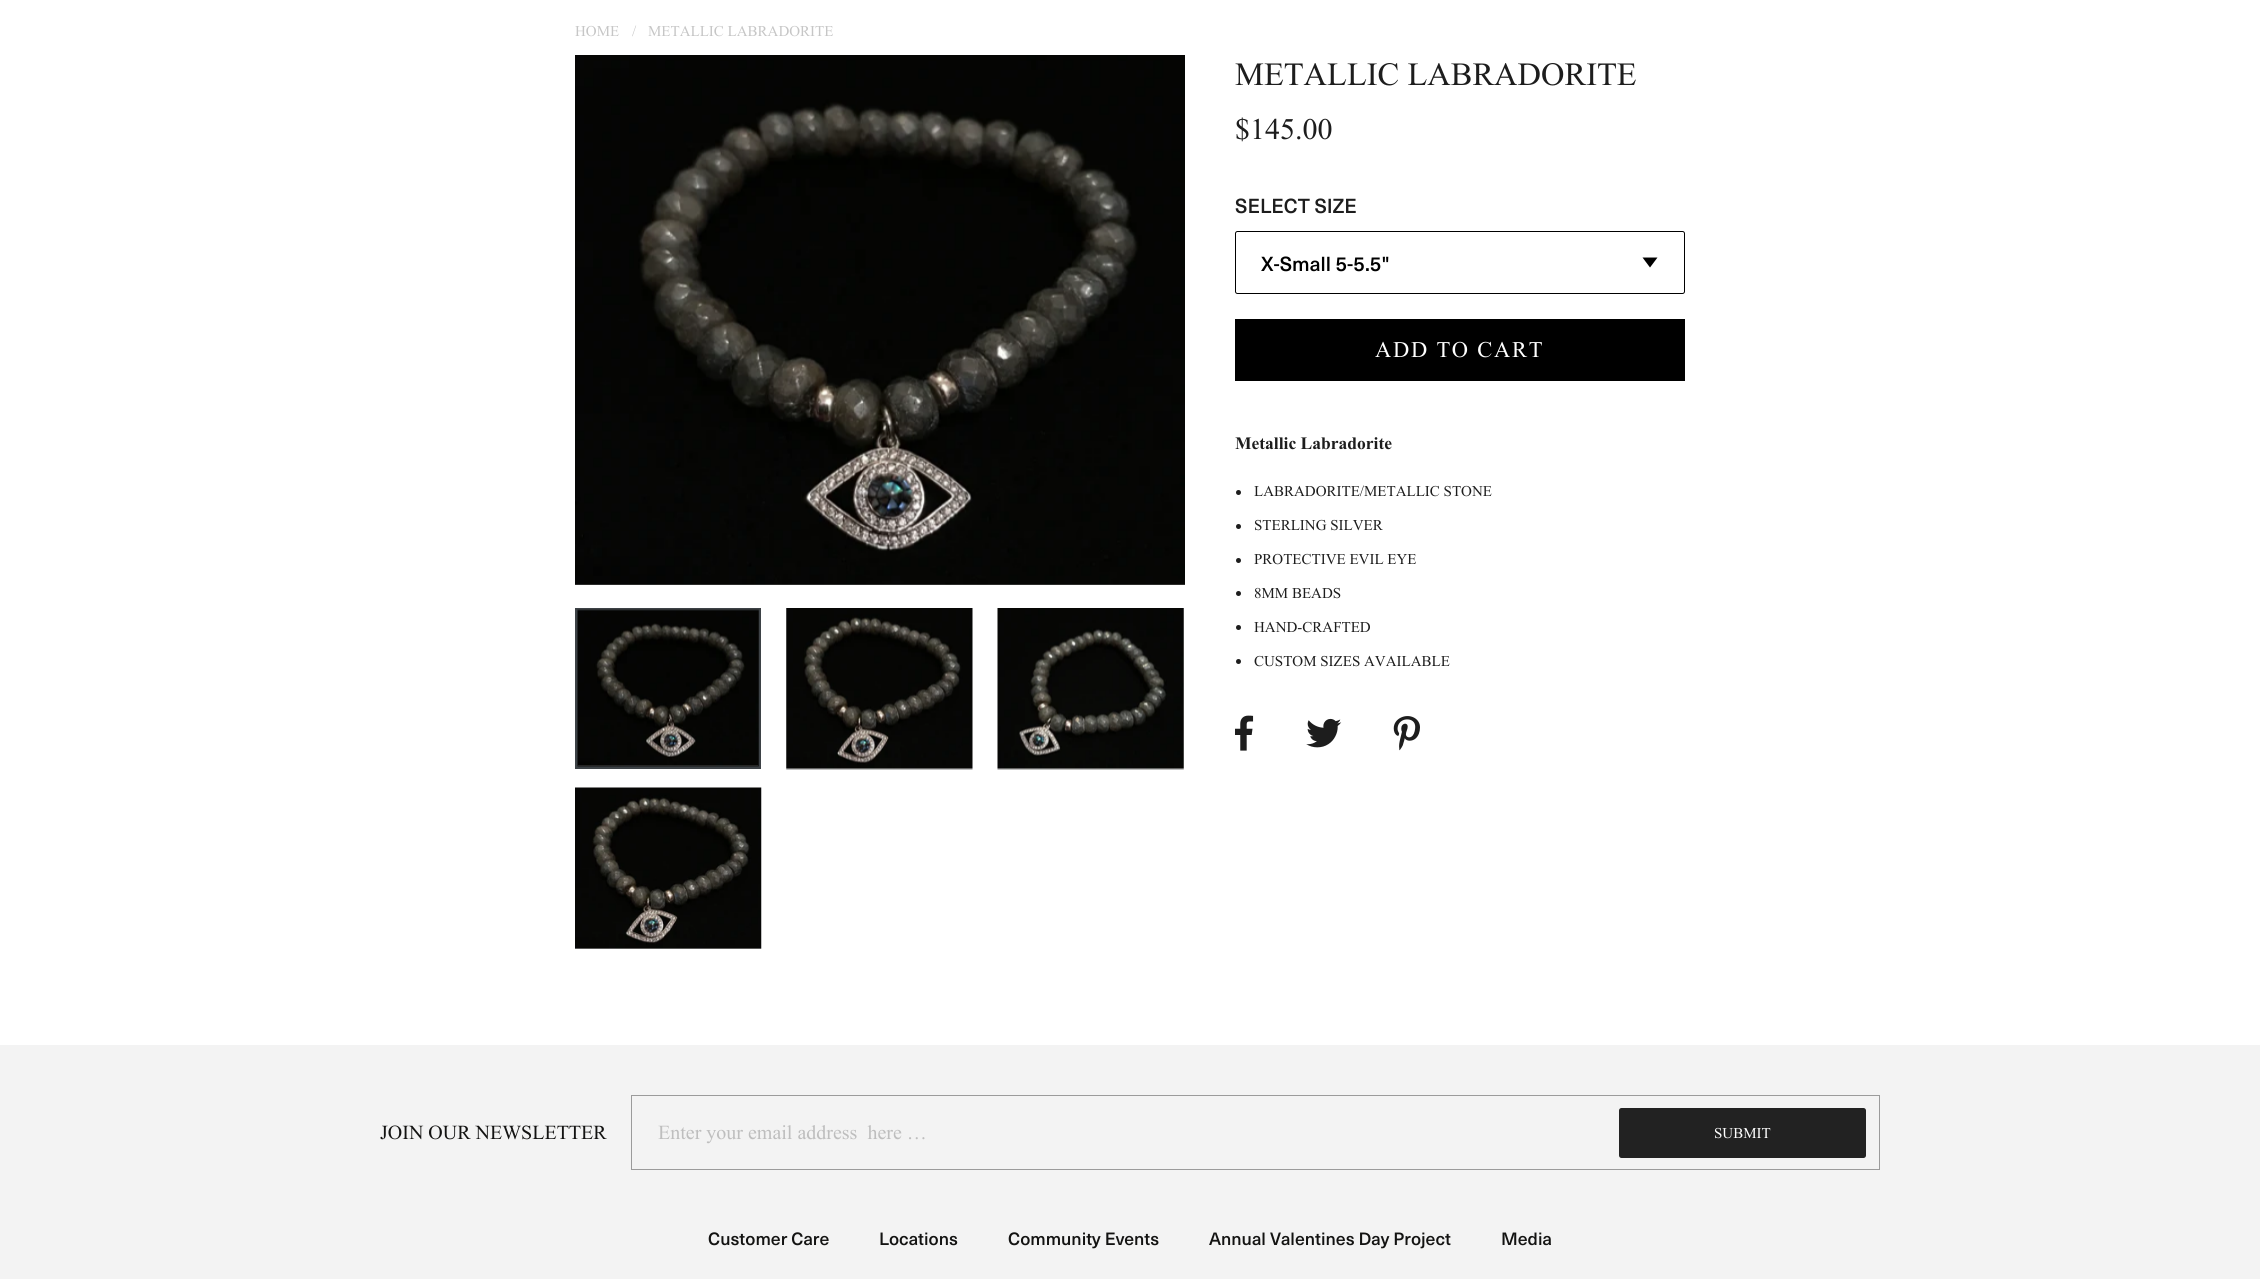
import math
import cairo

surface = cairo.ImageSurface(cairo.FORMAT_RGB24, 2260, 1279)
ctx = cairo.Context(surface)
options = cairo.FontOptions()
options.set_hint_metrics(cairo.HINT_METRICS_OFF)
options.set_hint_style(cairo.HINT_STYLE_NONE)
ctx.set_font_options(options)
ctx.set_miter_limit(4)


def set_color(code):
    ctx.set_source_rgb(*(v / 255 for v in bytes.fromhex(code[-6:])))


def draw_text(x, y, s, family, size, color, bold=False, italic=False):
    ctx.select_font_face(family, cairo.FONT_SLANT_ITALIC if italic else cairo.FONT_SLANT_NORMAL, cairo.FONT_WEIGHT_BOLD if bold else cairo.FONT_WEIGHT_NORMAL)
    ctx.set_font_size(size)
    set_color(color)
    ctx.move_to(x, y)
    ctx.show_text(s)


def draw_spaced(x, y, s, letter, word):
    ctx.move_to(x, y)
    for ch in s:
        ctx.show_text(ch)
        ctx.rel_move_to(letter + word * (ch == ' '), 0)


def fill_rect(x, y, w, h, color):
    set_color(color)
    ctx.rectangle(x, y, w, h)
    ctx.fill()


def rounded_rect(x, y, w, h, r):
    ctx.new_sub_path()
    for i, (u, v) in enumerate([(x + w - r, y + h - r), (x + r, y + h - r), (x + r, y + r), (x + w - r, y + r)]):
        ctx.arc(u, v, r, i * math.pi / 2, (i + 1) * math.pi / 2)
    ctx.close_path()


def draw_image(path, x, y, w, h):
    ctx.save()
    ctx.set_source_surface(cairo.ImageSurface.create_from_png(path), x, y)
    ctx.rectangle(x, y, w, h)
    ctx.fill()
    ctx.restore()


set_color("#ffffff")
ctx.paint()
draw_text(575, 36, "HOME", "Times New Roman", 15, "#c6c6c6")
draw_text(632, 36, "/", "Times New Roman", 15, "#c6c6c6")
draw_text(648, 36, "METALLIC LABRADORITE", "Times New Roman", 15, "#c6c6c6")
draw_image("assets/img1.png", 575, 55, 610, 530)
ctx.rectangle(576.5, 609.5, 183, 158)
set_color("#3d4246")
ctx.set_line_width(3)
ctx.stroke()
draw_image("assets/img2.png", 577, 609, 182, 158)
draw_image("assets/img3.png", 786, 608, 187, 162)
draw_image("assets/img4.png", 997, 608, 187, 162)
draw_image("assets/img5.png", 575, 787, 187, 162)
draw_text(1235, 85, "METALLIC LABRADORITE", "Times New Roman", 32.5, "#1d1d1d")
draw_text(1235, 139, "$145.00", "Times New Roman", 30, "#1d1d1d")
draw_text(1235, 213, "SELECT SIZE", "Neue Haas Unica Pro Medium", 20, "#1d1d1d")
rounded_rect(1235.5, 231.5, 449, 62, 2)
set_color("#000000")
ctx.set_line_width(1)
ctx.stroke()
draw_text(1261, 271, "X-Small 5-5.5\"", "Neue Haas Unica Pro Medium", 20, "#000000")
ctx.new_path()
ctx.move_to(1642.5, 257.5)
ctx.line_to(1657.5, 257.5)
ctx.line_to(1650, 267.5)
ctx.close_path()
ctx.fill()
fill_rect(1235, 319, 450, 62, "#000000")
ctx.select_font_face("Times New Roman")
ctx.set_font_size(22.5)
set_color("#ffffff")
draw_spaced(1375, 357, "ADD TO CART", 1.75, 0)
draw_text(1235, 449, "Metallic Labradorite", "Times New Roman", 17.5, "#1d1d1d", bold=True)
ctx.new_path()
ctx.arc(1238.5, 492.5, 2.5, 0, 2 * math.pi)
ctx.fill()
draw_text(1254, 496, "LABRADORITE/METALLIC STONE", "Times New Roman", 15, "#1d1d1d")
ctx.new_path()
ctx.arc(1238.5, 526.5, 2.5, 0, 2 * math.pi)
ctx.fill()
draw_text(1254, 530, "STERLING SILVER", "Times New Roman", 15, "#1d1d1d")
ctx.new_path()
ctx.arc(1238.5, 560.5, 2.5, 0, 2 * math.pi)
ctx.fill()
draw_text(1254, 564, "PROTECTIVE EVIL EYE", "Times New Roman", 15, "#1d1d1d")
ctx.new_path()
ctx.arc(1238.5, 593.5, 2.5, 0, 2 * math.pi)
ctx.fill()
draw_text(1254, 598, "8MM BEADS", "Times New Roman", 15, "#1d1d1d")
ctx.new_path()
ctx.arc(1238.5, 627.5, 2.5, 0, 2 * math.pi)
ctx.fill()
draw_text(1254, 632, "HAND-CRAFTED", "Times New Roman", 15, "#1d1d1d")
ctx.new_path()
ctx.arc(1238.5, 661.5, 2.5, 0, 2 * math.pi)
ctx.fill()
draw_text(1254, 666, "CUSTOM SIZES AVAILABLE", "Times New Roman", 15, "#1d1d1d")
draw_image("assets/img6.png", 1235, 715, 19, 36)
draw_image("assets/img7.png", 1306, 718, 36, 30)
draw_image("assets/img8.png", 1393, 716, 27, 35)
fill_rect(0, 1045, 2260, 234, "#f3f3f3")
draw_text(380, 1139, "JOIN OUR NEWSLETTER", "Times New Roman", 20, "#131312")
ctx.rectangle(631.5, 1095.5, 1248, 74)
set_color("#9b9b9b")
ctx.stroke()
draw_text(658, 1139, "Enter your email address  here …", "Times New Roman", 20, "#bebebe")
set_color("#222222")
rounded_rect(1619, 1108, 247, 50, 2.5)
ctx.fill()
draw_text(1714, 1138, "SUBMIT", "Times New Roman", 15, "#ffffff")
draw_text(708, 1245, "Customer Care", "Neue Haas Unica Pro Medium", 17.5, "#131312")
draw_text(879, 1245, "Locations", "Neue Haas Unica Pro Medium", 17.5, "#131312")
draw_text(1008, 1245, "Community Events", "Neue Haas Unica Pro Medium", 17.5, "#131312")
draw_text(1209, 1245, "Annual Valentines Day Project", "Neue Haas Unica Pro Medium", 17.5, "#131312")
draw_text(1501, 1245, "Media", "Neue Haas Unica Pro Medium", 17.5, "#131312")
surface.write_to_png("output.png")
